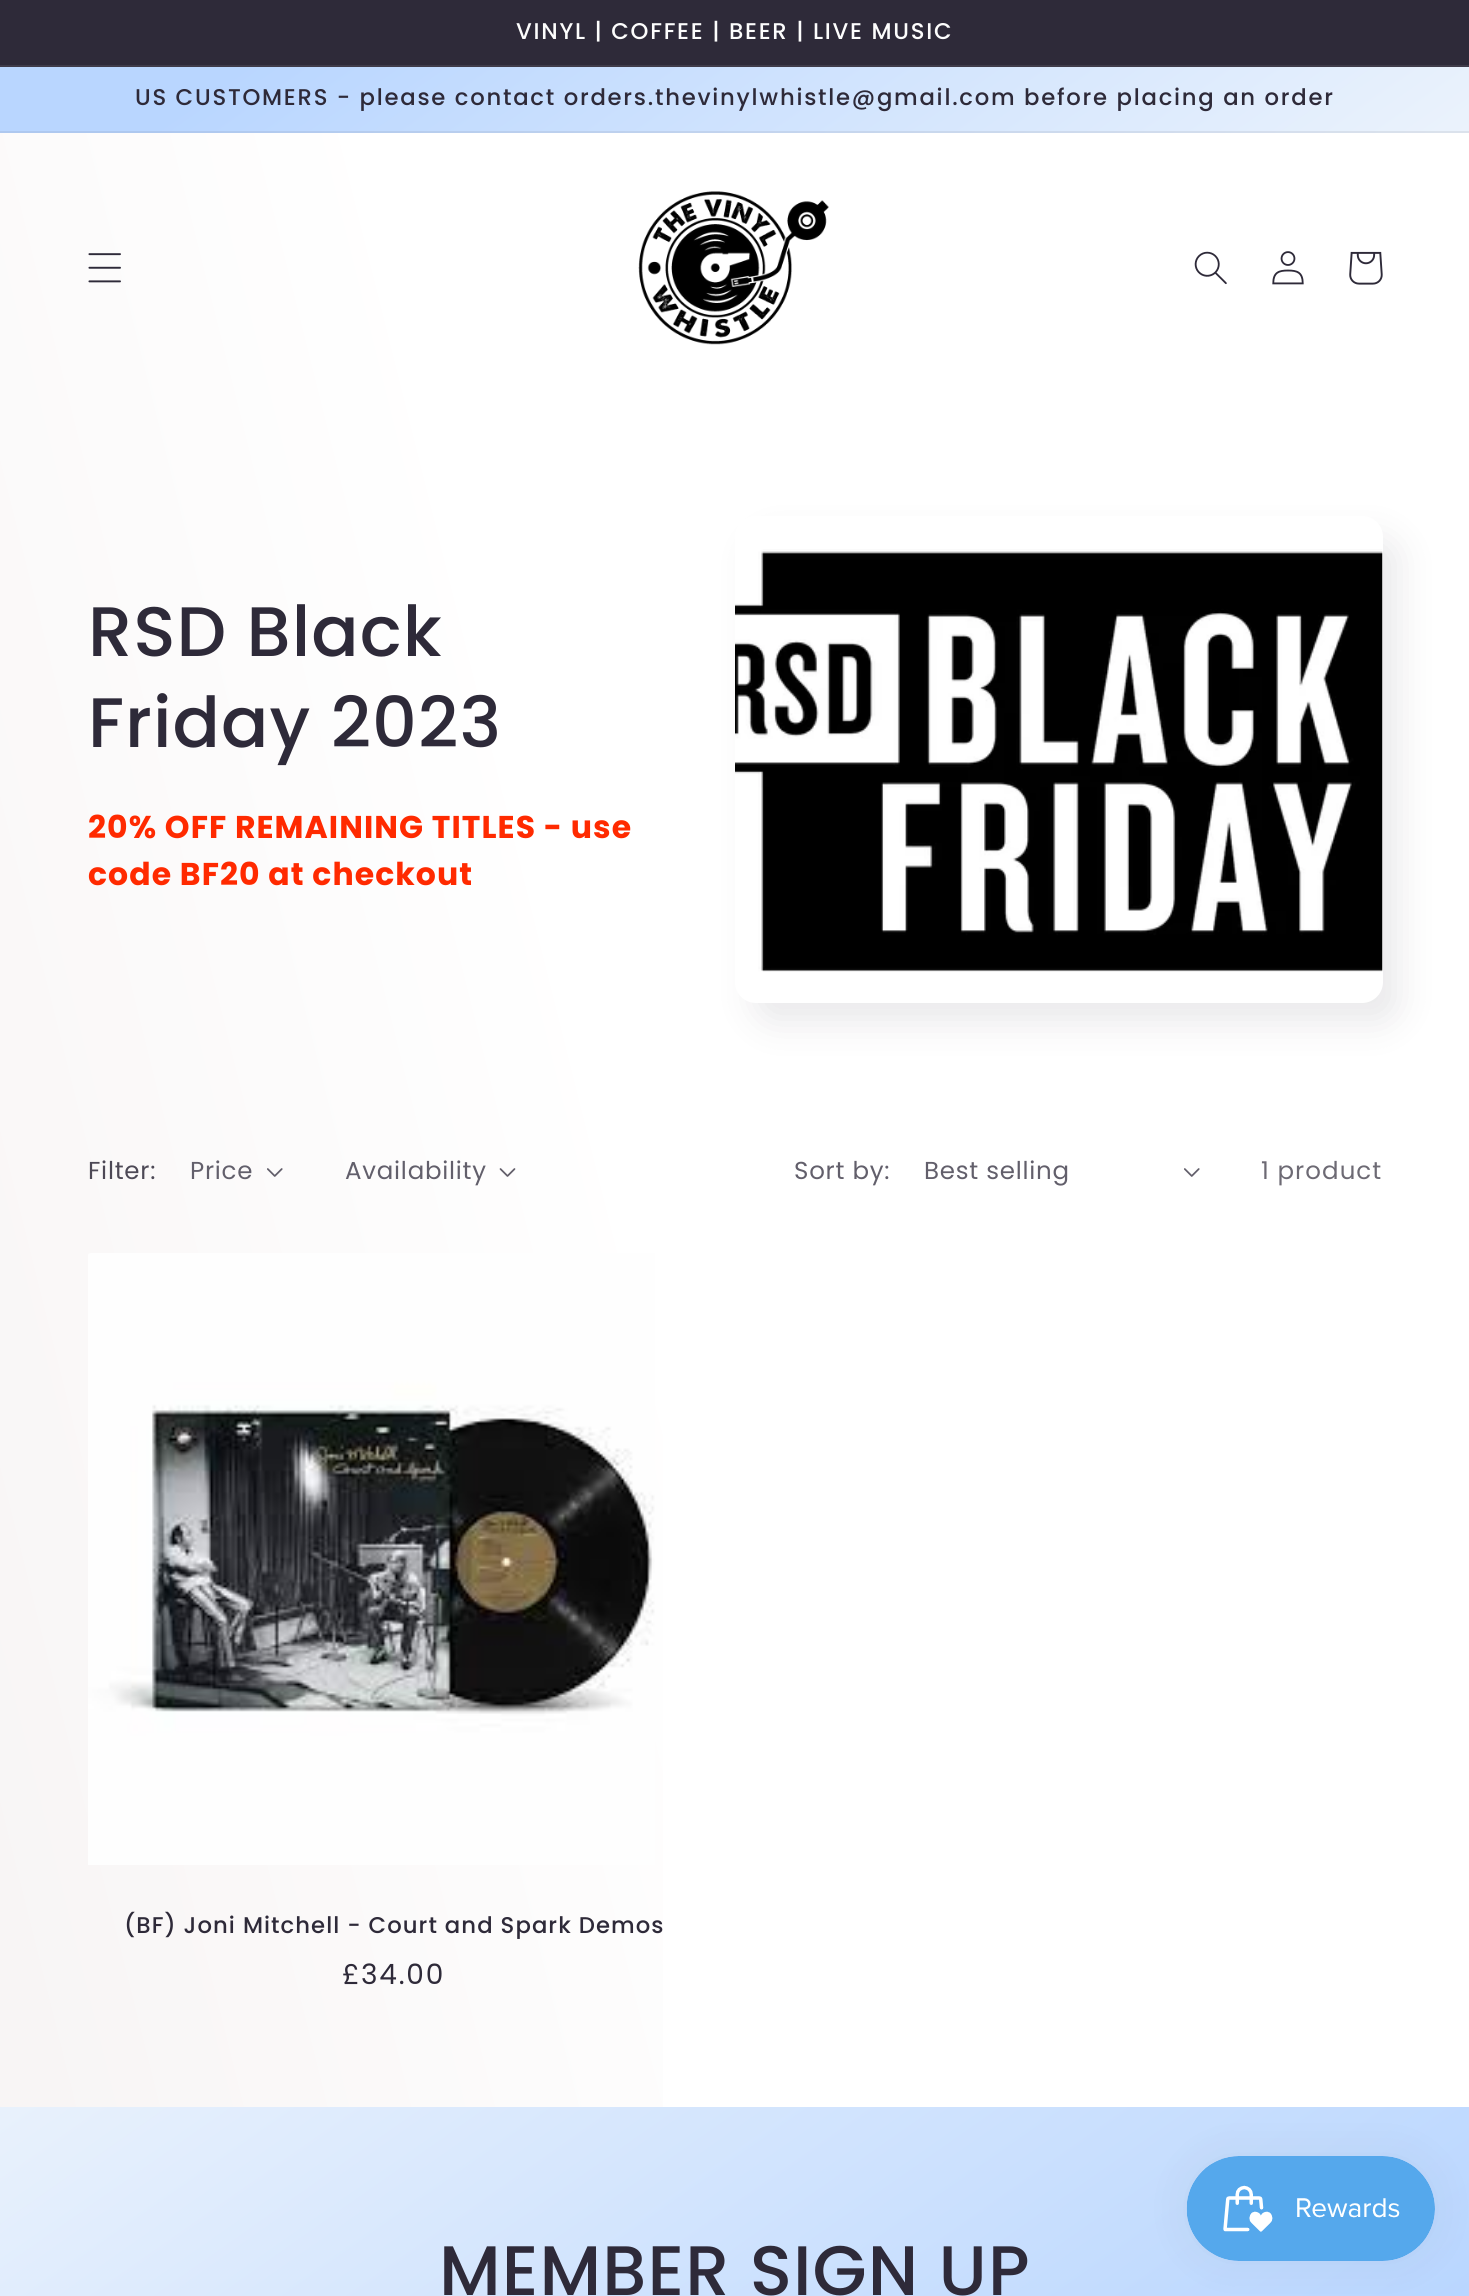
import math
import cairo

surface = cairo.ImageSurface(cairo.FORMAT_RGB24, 1469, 2296)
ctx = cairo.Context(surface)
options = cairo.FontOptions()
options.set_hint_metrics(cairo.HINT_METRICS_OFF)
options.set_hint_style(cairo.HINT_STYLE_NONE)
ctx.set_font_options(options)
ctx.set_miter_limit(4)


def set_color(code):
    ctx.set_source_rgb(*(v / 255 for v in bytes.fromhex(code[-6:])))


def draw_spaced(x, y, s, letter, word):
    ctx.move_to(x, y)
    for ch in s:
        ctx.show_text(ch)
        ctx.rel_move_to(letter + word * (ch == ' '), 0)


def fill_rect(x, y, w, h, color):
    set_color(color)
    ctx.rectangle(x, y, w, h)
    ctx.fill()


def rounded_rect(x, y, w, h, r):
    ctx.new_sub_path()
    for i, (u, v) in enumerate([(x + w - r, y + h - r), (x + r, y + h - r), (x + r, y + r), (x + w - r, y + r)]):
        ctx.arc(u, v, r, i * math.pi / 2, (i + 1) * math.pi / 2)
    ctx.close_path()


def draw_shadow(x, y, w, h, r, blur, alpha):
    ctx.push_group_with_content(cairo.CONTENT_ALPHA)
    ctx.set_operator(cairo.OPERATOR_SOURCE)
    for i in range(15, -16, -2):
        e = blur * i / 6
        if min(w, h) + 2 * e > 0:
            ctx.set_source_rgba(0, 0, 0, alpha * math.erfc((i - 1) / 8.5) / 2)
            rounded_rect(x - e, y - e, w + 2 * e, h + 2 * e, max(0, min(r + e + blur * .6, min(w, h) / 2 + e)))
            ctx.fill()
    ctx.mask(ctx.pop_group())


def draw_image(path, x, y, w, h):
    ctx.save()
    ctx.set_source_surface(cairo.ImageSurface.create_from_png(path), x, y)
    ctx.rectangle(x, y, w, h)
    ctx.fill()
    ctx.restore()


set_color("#ffffff")
ctx.paint()
gradient = cairo.LinearGradient(-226, 1388, 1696, 908)
gradient.add_color_stop_rgba(0, 0.969, 0.957, 0.957, 1)
gradient.add_color_stop_rgba(0.45, 1, 1, 1, 1)
gradient.add_color_stop_rgba(1, 1, 1, 1, 1)
ctx.set_source(gradient)
ctx.rectangle(0, 133, 663, 1974)
ctx.fill()
fill_rect(0, 0, 1469, 65, "#2e2a39")
fill_rect(0, 65, 1469, 2, "#3f3b49")
ctx.select_font_face("Poppins Medium")
ctx.set_font_size(22.75)
set_color("#fdfdfd")
draw_spaced(516, 39, "VINYL | COFFEE | BEER | LIVE MUSIC", 1.75, 0)
gradient = cairo.LinearGradient(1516, 2264, -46, 32)
gradient.add_color_stop_rgba(0, 0.725, 0.839, 1, 1)
gradient.add_color_stop_rgba(0.54, 1, 0.996, 0.984, 1)
gradient.add_color_stop_rgba(0.93, 0.725, 0.839, 1, 1)
ctx.set_source(gradient)
ctx.rectangle(0, 67, 1469, 64)
ctx.fill()
gradient = cairo.LinearGradient(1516, 2264, -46, 32)
gradient.add_color_stop_rgba(0, 0.682, 0.784, 0.937, 1)
gradient.add_color_stop_rgba(0.54, 0.933, 0.929, 0.922, 1)
gradient.add_color_stop_rgba(0.93, 0.682, 0.784, 0.937, 1)
ctx.set_source(gradient)
ctx.rectangle(0, 131, 1469, 2)
ctx.fill()
set_color("#2e2a39")
draw_spaced(135, 105, "US CUSTOMERS - please contact orders.thevinylwhistle@gmail.com before placing an order", 1.75, 0)
draw_image("assets/img1.png", 88, 253, 33, 30)
draw_image("assets/img2.png", 638, 191, 191, 154)
draw_image("assets/img3.png", 1194, 251, 33, 34)
draw_image("assets/img4.png", 1272, 251, 32, 34)
draw_image("assets/img5.png", 1349, 251, 34, 34)
ctx.set_font_size(70)
draw_spaced(88, 656, "RSD Black", 1.05, 0)
draw_spaced(88, 747, "Friday 2023", 1.05, 0)
ctx.select_font_face("Poppins", cairo.FONT_SLANT_NORMAL, cairo.FONT_WEIGHT_BOLD)
ctx.set_font_size(31.5)
set_color("#ff2a00")
draw_spaced(88, 838, "20% OFF REMAINING TITLES - use", 1.05, 0)
draw_spaced(88, 885, "code BF20 at checkout", 1.05, 0)
set_color("#2e2a39")
draw_shadow(753, 537, 647, 487, 21, 17.5, 0.1)
gradient = cairo.LinearGradient(-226, 1388, 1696, 908)
gradient.add_color_stop_rgba(0, 0.969, 0.957, 0.957, 1)
gradient.add_color_stop_rgba(0.45, 1, 1, 1, 1)
gradient.add_color_stop_rgba(1, 1, 1, 1, 1)
ctx.set_source(gradient)
rounded_rect(735, 516, 648, 487, 21)
ctx.fill()
draw_image("assets/img6.png", 735, 549, 648, 423)
ctx.select_font_face("Poppins")
ctx.set_font_size(24.5)
set_color("#4d4956")
draw_spaced(88, 1179, "Filter:", 0.75, 0)
set_color("#625f6b")
draw_spaced(190, 1179, "Price", 0.75, 0)
draw_image("assets/img7.png", 267, 1168, 16, 9)
draw_spaced(345, 1179, "Availability", 0.75, 0)
draw_image("assets/img8.png", 499, 1168, 17, 9)
draw_spaced(794, 1179, "Sort by:", 0.75, 0)
draw_spaced(924, 1179, "Best selling", 0.75, 0)
draw_image("assets/img9.png", 1184, 1168, 16, 9)
set_color("#6d6a74")
draw_spaced(1261, 1179, "1 product", 1.05, 0)
draw_image("assets/img10.png", 88, 1253, 567, 612)
ctx.select_font_face("Poppins Medium")
ctx.set_font_size(22.75)
set_color("#2e2a39")
draw_spaced(124, 1933, "(BF) Joni Mitchell - Court and Spark Demos", 1.05, 0)
ctx.select_font_face("Poppins")
ctx.set_font_size(28)
draw_spaced(342, 1984, "£34.00", 1.75, 0)
gradient = cairo.LinearGradient(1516, 2264, -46, 32)
gradient.add_color_stop_rgba(0, 0.725, 0.839, 1, 1)
gradient.add_color_stop_rgba(0.54, 1, 0.996, 0.984, 1)
gradient.add_color_stop_rgba(0.93, 0.725, 0.839, 1, 1)
ctx.set_source(gradient)
ctx.rectangle(0, 2107, 1469, 189)
ctx.fill()
ctx.select_font_face("Poppins Medium")
ctx.set_font_size(70)
set_color("#2e2a39")
draw_spaced(439, 2295, "MEMBER SIGN UP", 1.05, 0)
set_color("#000000")
draw_shadow(1187, 2156, 248, 105, 52.5, 22, 0.05)
draw_image("assets/img11.png", 1186, 2156, 249, 105)
surface.write_to_png("output.png")
